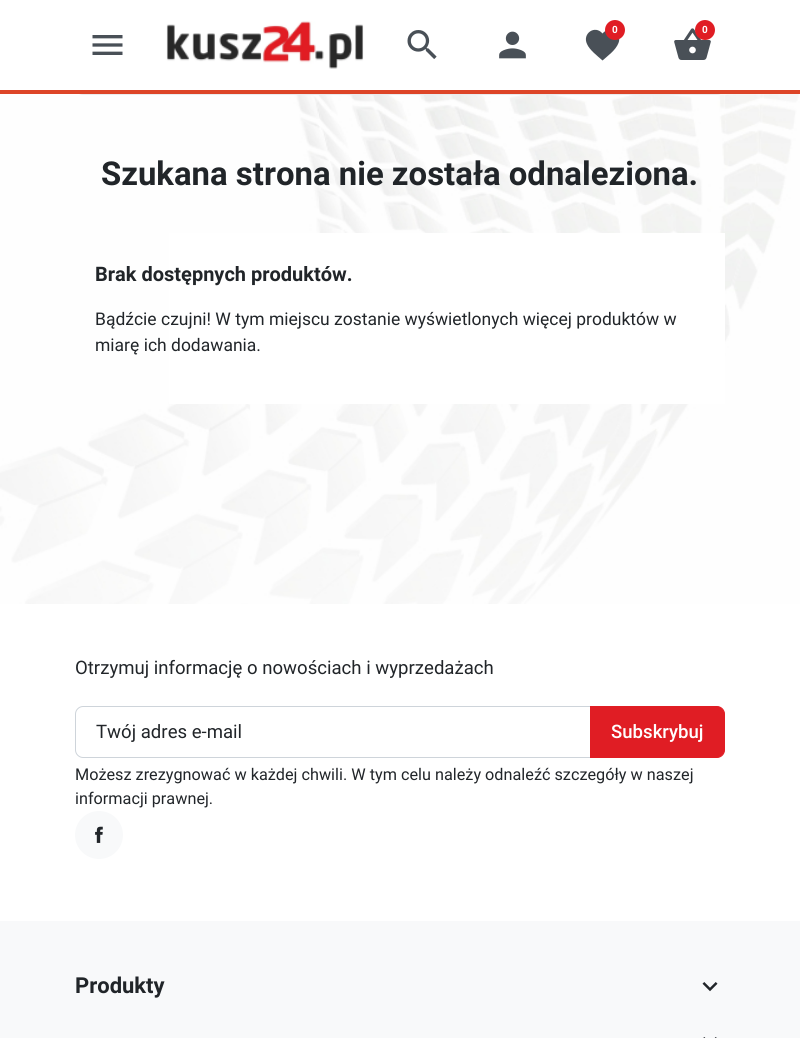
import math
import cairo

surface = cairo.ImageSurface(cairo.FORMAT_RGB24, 800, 1038)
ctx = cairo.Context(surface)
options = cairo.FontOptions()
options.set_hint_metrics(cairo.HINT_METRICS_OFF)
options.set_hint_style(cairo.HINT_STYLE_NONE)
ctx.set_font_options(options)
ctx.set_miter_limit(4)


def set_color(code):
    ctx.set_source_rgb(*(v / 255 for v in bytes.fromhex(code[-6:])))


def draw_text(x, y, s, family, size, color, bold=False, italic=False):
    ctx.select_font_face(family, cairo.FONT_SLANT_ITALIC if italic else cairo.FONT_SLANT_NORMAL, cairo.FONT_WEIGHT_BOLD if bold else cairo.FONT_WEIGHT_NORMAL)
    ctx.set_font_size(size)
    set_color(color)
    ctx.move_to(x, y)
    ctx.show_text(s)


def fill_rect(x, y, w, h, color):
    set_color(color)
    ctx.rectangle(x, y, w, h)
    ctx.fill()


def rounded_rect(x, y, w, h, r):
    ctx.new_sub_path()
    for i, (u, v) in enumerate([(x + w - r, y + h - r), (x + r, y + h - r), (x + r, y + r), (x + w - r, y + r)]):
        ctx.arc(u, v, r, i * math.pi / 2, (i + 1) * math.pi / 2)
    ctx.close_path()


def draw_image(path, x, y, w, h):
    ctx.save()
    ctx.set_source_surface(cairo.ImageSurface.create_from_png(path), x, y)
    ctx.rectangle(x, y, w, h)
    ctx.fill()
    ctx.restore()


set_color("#ffffff")
ctx.paint()
draw_image("assets/img6.png", 0, 94, 800, 510)
set_color("#e9ecef")
rounded_rect(75, 38, 650, 57, 8)
ctx.fill()
fill_rect(75, 38, 650, 52, "#ffffff")
fill_rect(0, 90, 800, 4, "#dd4528")
draw_image("assets/img1.png", 92, 35, 31, 20)
draw_image("assets/img2.png", 166, 21, 198, 48)
draw_image("assets/img3.png", 407, 30, 30, 29)
draw_image("assets/img4.png", 499, 31, 27, 28)
set_color("#495057")
ctx.new_path()
ctx.move_to(602.5, 60.5)
ctx.curve_to(597.5, 56, 589.5, 50, 587, 44)
ctx.curve_to(582, 33.5, 595, 24.5, 602.5, 33.5)
ctx.curve_to(609.5, 25, 622.5, 33, 618.5, 43)
ctx.curve_to(615.5, 50.5, 608, 55.5, 602.5, 60.5)
ctx.close_path()
ctx.fill()
set_color("#e01d24")
ctx.arc(615, 30, 10, 0, 2 * math.pi)
ctx.fill()
draw_text(612, 33, "0", "Roboto", 10, "#ffffff", bold=True)
draw_image("assets/img5.png", 674, 28, 37, 32)
set_color("#e01d24")
ctx.arc(705, 30, 10, 0, 2 * math.pi)
ctx.fill()
draw_text(702, 33, "0", "Roboto", 10, "#ffffff", bold=True)
draw_text(101, 185, "Szukana strona nie została odnaleziona.", "Roboto", 32.9, "#212529", bold=True)
fill_rect(169, 233, 556, 171, "#ffffff")
draw_text(95, 281, "Brak dostępnych produktów.", "Roboto", 20, "#212529", bold=True)
draw_text(95, 325, "Bądźcie czujni! W tym miejscu zostanie wyświetlonych więcej produktów w", "Roboto", 17.5, "#212529")
draw_text(95, 351, "miarę ich dodawania.", "Roboto", 17.5, "#212529")
draw_text(75, 674, "Otrzymuj informację o nowościach i wyprzedażach", "Roboto", 18.6, "#212529")
ctx.new_path()
ctx.move_to(83, 706.5)
ctx.line_to(590.5, 706.5)
ctx.line_to(590.5, 757.5)
ctx.line_to(83, 757.5)
ctx.curve_to(79, 757.5, 75.5, 754, 75.5, 750)
ctx.line_to(75.5, 714)
ctx.curve_to(75.5, 710, 79, 706.5, 83, 706.5)
ctx.close_path()
set_color("#ced4da")
ctx.set_line_width(1)
ctx.stroke()
draw_text(96, 738, "Twój adres e-mail", "Roboto", 18.6, "#212529")
set_color("#e01d24")
ctx.new_path()
ctx.move_to(590.5, 706.5)
ctx.line_to(717, 706.5)
ctx.curve_to(721, 706.5, 724.5, 710, 724.5, 714)
ctx.line_to(724.5, 750)
ctx.curve_to(724.5, 754, 721, 757.5, 717, 757.5)
ctx.line_to(590.5, 757.5)
ctx.close_path()
ctx.fill_preserve()
ctx.stroke()
draw_text(611, 738, "Subskrybuj", "Roboto Medium", 18.6, "#ffffff")
draw_text(75, 780, "Możesz zrezygnować w każdej chwili. W tym celu należy odnaleźć szczegóły w naszej", "Roboto", 16.25, "#212529")
draw_text(75, 804, "informacji prawnej.", "Roboto", 16.25, "#212529")
set_color("#f8f9fa")
ctx.new_path()
ctx.arc(99, 835, 24, 0, 2 * math.pi)
ctx.fill()
draw_image("assets/img7.png", 95, 826, 8, 17)
fill_rect(0, 921, 800, 117, "#f8f9fa")
draw_text(75, 993, "Produkty", "Roboto", 22, "#212529", bold=True)
draw_image("assets/img8.png", 702, 982, 16, 10)
draw_image("assets/img9.png", 703, 1037, 14, 1)
surface.write_to_png("output.png")
